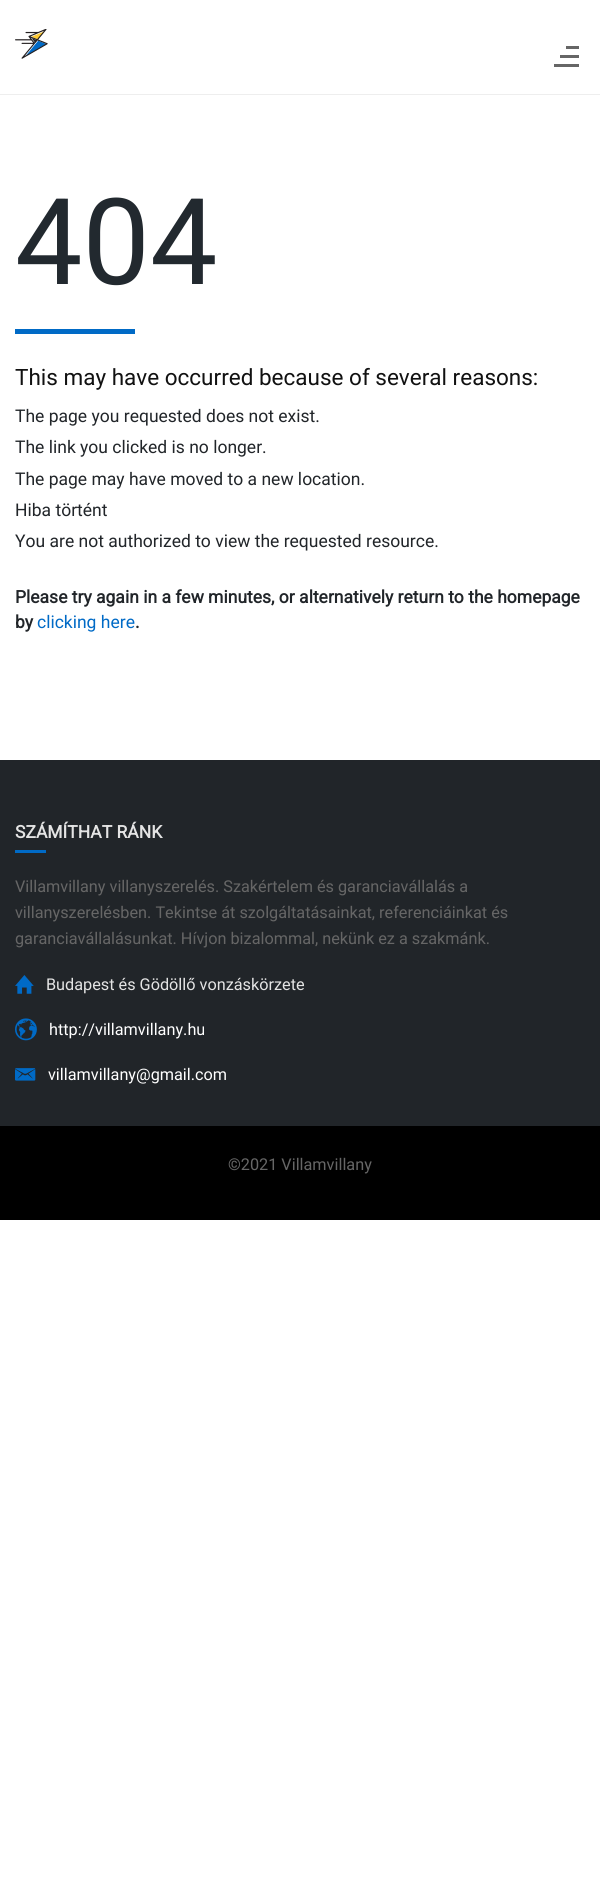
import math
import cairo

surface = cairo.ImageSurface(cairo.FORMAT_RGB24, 600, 1888)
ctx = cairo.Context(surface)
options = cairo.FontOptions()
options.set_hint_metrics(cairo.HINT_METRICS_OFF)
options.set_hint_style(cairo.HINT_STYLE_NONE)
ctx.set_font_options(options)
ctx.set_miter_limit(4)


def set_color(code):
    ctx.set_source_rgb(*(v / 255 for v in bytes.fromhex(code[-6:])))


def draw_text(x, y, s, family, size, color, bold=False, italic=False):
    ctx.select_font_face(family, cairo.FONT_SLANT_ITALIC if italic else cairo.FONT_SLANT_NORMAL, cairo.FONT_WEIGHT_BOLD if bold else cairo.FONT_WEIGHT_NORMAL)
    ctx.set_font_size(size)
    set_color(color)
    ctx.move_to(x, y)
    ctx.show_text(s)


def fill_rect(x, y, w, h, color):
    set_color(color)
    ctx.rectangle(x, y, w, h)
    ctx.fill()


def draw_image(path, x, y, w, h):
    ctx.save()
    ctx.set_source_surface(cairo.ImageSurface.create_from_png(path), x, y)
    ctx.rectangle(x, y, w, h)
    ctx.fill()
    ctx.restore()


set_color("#ffffff")
ctx.paint()
fill_rect(0, 94, 600, 1, "#eeeeee")
draw_image("assets/img1.png", 15, 29, 33, 30)
fill_rect(566, 46, 13, 3, "#666666")
fill_rect(560, 55, 19, 3, "#666666")
fill_rect(554, 64, 25, 3, "#666666")
draw_text(15, 284, "404", "Roboto", 120, "#22292f")
fill_rect(15, 329, 120, 5, "#006ac6")
draw_text(15, 385, "This may have occurred because of several reasons:", "Roboto", 22.5, "#111111")
draw_text(15, 422, "The page you requested does not exist.", "Roboto", 17.5, "#212529")
draw_text(15, 453, "The link you clicked is no longer.", "Roboto", 17.5, "#212529")
draw_text(15, 485, "The page may have moved to a new location.", "Roboto", 17.5, "#212529")
draw_text(15, 516, "Hiba történt", "Roboto", 17.5, "#212529")
draw_text(15, 547, "You are not authorized to view the requested resource.", "Roboto", 17.5, "#212529")
draw_text(15, 603, "Please try again in a few minutes, or alternatively return to the homepage", "Roboto", 17.5, "#212529", bold=True)
draw_text(15, 628, "by", "Roboto", 17.5, "#212529", bold=True)
draw_text(37, 628, "clicking here", "Roboto", 17.5, "#006ac6")
draw_text(135, 628, ".", "Roboto", 17.5, "#212529", bold=True)
fill_rect(0, 760, 600, 366, "#212529")
draw_text(15, 838, "SZÁMÍTHAT RÁNK", "Roboto", 17.5, "#e4e4e4", bold=True)
fill_rect(15, 850, 31, 3, "#006ac6")
draw_text(15, 892, "Villamvillany villanyszerelés. Szakértelem és garanciavállalás a", "Roboto", 16.25, "#666666")
draw_text(15, 918, "villanyszerelésben. Tekintse át szolgáltatásainkat, referenciáinkat és", "Roboto", 16.25, "#666666")
draw_text(15, 944, "garanciavállalásunkat. Hívjon bizalommal, nekünk ez a szakmánk.", "Roboto", 16.25, "#666666")
draw_image("assets/img2.png", 15, 975, 19, 19)
draw_text(46, 990, "Budapest és Gödöllő vonzáskörzete", "Roboto", 16.25, "#e4e4e4")
draw_image("assets/img3.png", 15, 1018, 22, 23)
draw_text(49, 1035, "http://villamvillany.hu", "Roboto", 16.25, "#ffffff")
draw_image("assets/img4.png", 15, 1068, 21, 13)
draw_text(48, 1080, "villamvillany@gmail.com", "Roboto", 16.25, "#ffffff")
fill_rect(0, 1126, 600, 94, "#000000")
draw_text(228, 1170, "©2021 Villamvillany", "Roboto", 16.25, "#666666")
surface.write_to_png("output.png")
